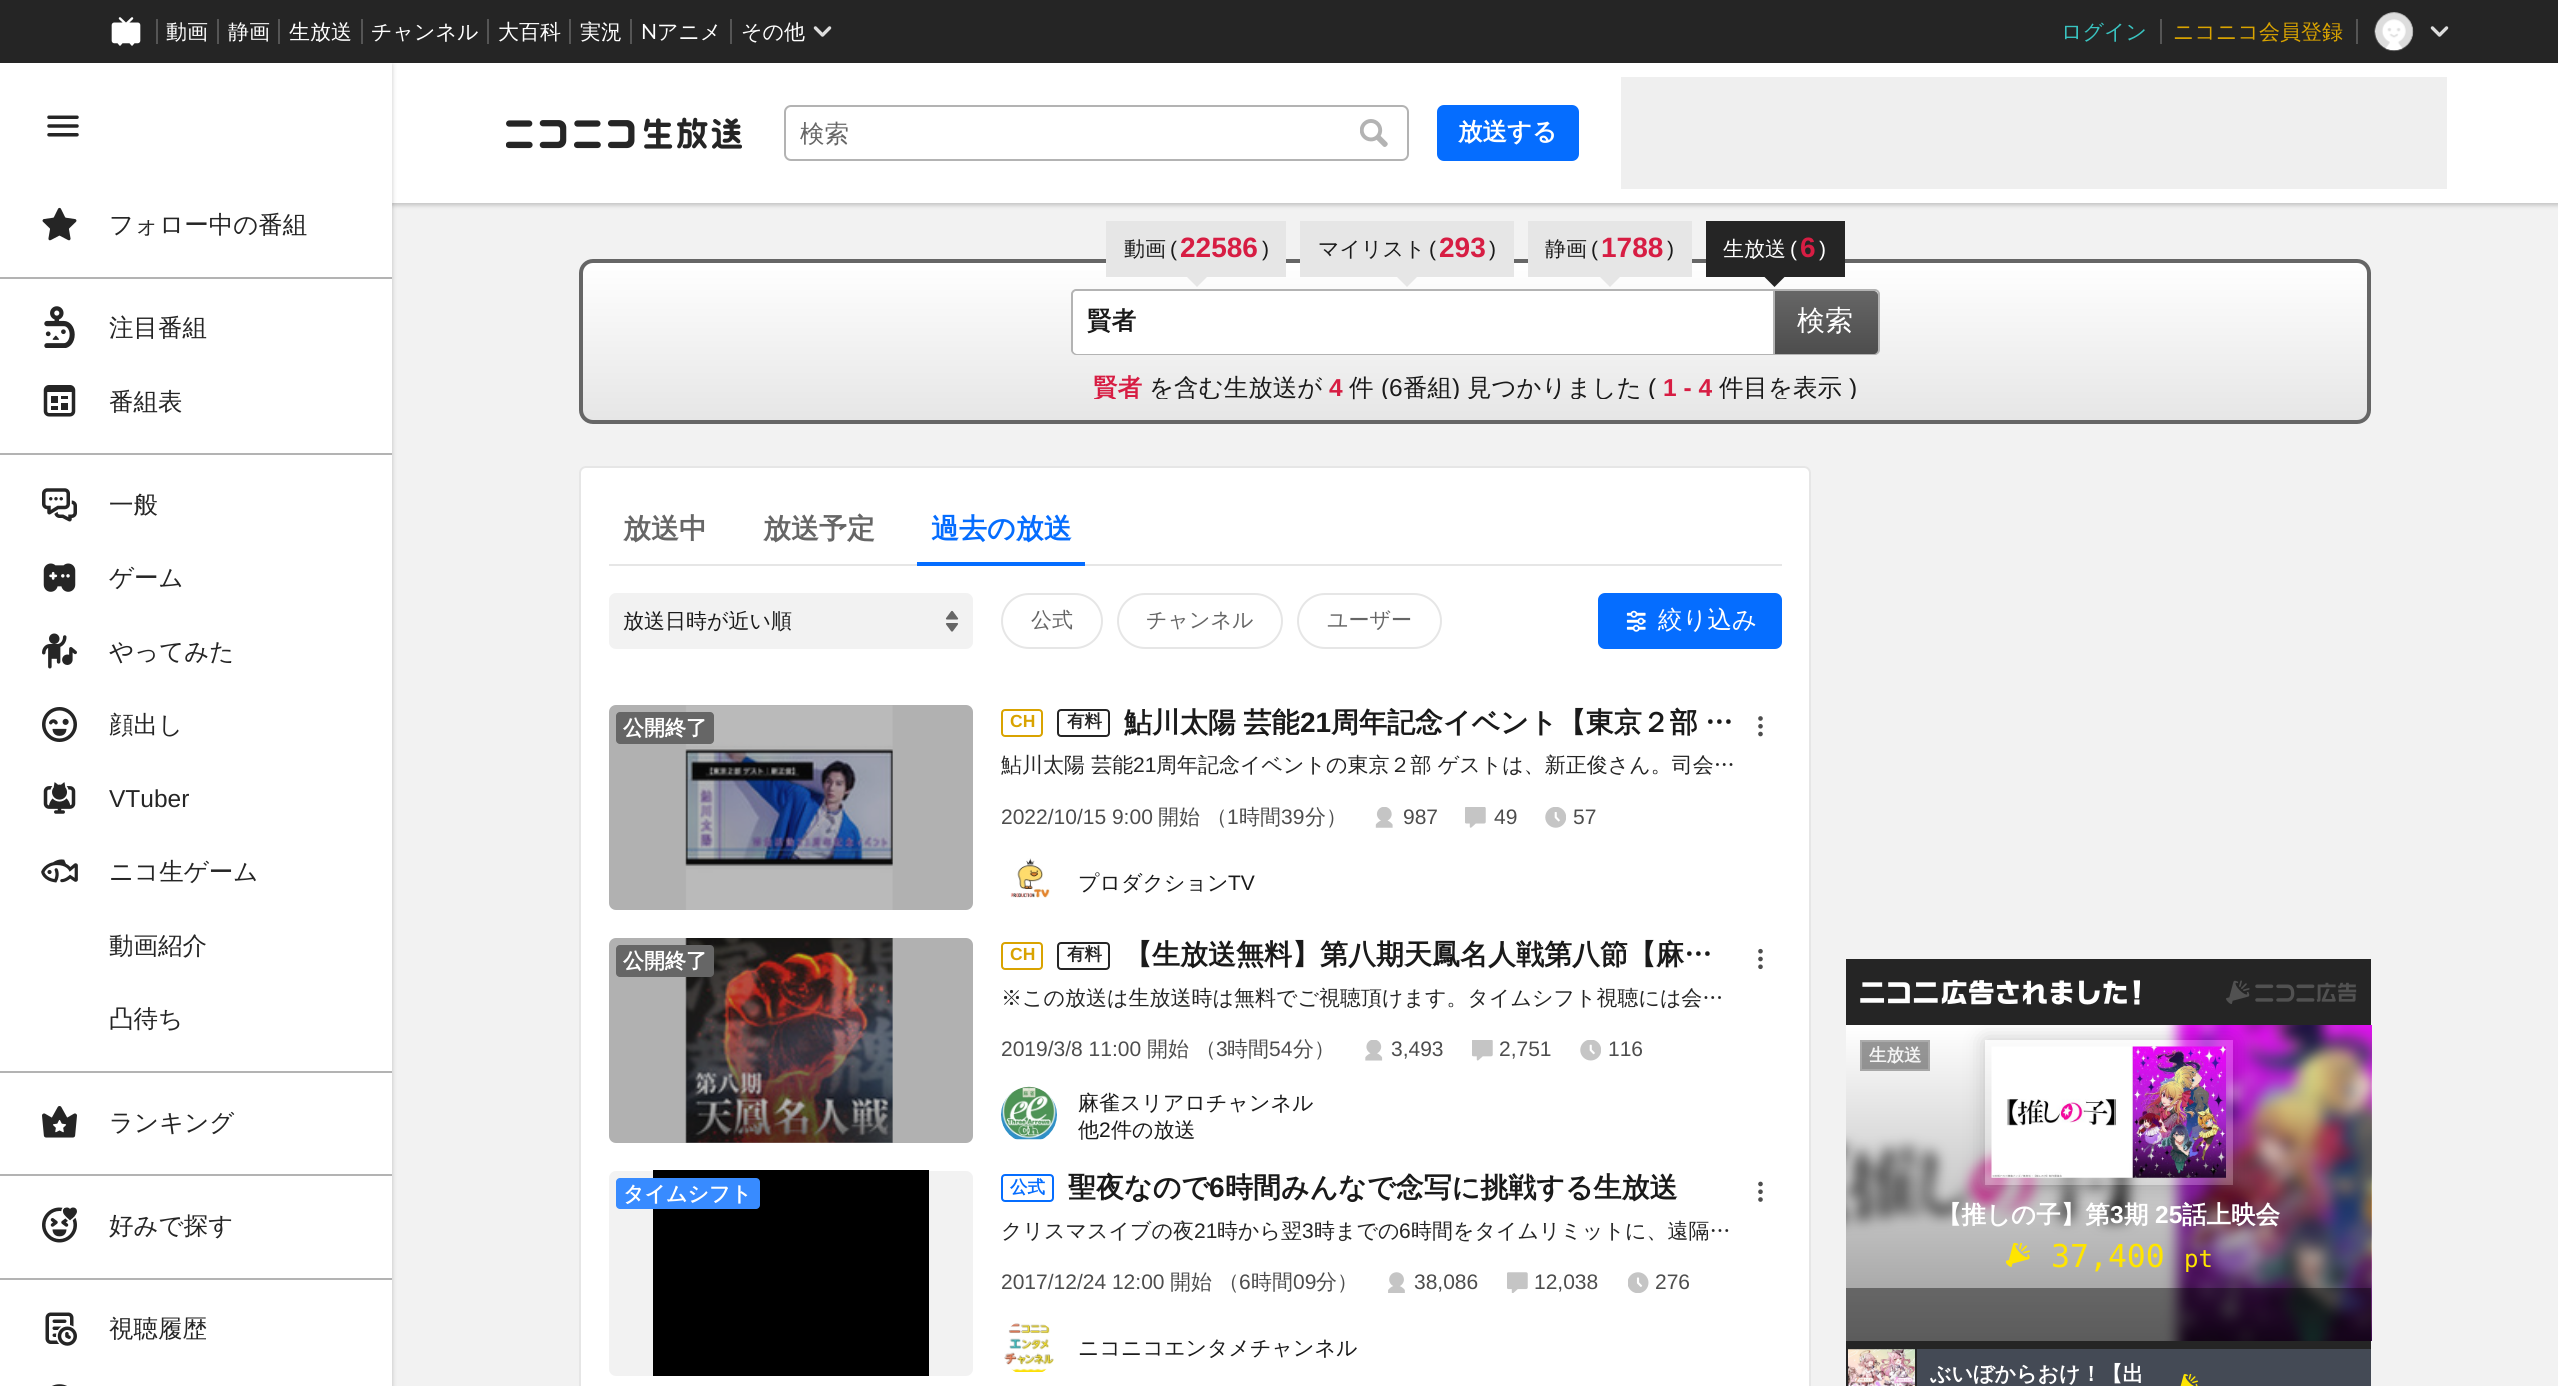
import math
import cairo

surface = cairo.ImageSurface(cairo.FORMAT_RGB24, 2558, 1386)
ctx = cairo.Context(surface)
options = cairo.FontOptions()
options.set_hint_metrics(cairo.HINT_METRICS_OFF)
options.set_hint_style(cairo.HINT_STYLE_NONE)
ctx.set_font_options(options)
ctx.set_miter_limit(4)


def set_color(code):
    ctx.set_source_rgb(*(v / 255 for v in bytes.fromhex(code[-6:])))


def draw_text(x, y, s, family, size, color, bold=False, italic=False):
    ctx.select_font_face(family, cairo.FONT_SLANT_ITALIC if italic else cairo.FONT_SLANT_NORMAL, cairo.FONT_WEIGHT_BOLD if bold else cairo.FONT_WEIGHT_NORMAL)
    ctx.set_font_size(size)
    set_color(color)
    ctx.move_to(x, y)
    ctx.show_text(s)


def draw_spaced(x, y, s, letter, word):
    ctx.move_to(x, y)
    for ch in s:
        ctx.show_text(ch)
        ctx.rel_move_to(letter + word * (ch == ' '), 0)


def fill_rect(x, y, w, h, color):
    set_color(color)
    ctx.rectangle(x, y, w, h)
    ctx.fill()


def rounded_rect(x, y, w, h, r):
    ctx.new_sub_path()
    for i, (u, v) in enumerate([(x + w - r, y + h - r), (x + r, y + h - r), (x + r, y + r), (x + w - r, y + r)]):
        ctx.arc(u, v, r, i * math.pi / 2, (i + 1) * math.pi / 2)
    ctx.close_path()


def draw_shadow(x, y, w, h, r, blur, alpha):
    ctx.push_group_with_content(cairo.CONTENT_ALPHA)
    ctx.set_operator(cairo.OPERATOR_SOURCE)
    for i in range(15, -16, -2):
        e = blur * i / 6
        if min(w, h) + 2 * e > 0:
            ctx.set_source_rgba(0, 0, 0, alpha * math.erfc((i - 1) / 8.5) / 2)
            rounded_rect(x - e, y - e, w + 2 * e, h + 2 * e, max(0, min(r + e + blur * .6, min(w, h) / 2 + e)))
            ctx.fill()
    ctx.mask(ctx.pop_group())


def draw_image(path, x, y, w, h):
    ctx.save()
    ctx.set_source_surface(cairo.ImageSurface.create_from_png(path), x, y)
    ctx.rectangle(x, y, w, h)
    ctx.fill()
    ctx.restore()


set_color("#f2f2f2")
ctx.paint()
set_color("#1a1a1a")
draw_shadow(392, 65, 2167, 140, 0, 2.5, 0.25)
fill_rect(392, 63, 2166, 140, "#ffffff")
set_color("#1a1a1a")
draw_shadow(0, 65, 392, 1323, 0, 2.5, 0.25)
fill_rect(0, 0, 2558, 63, "#252525")
draw_image("assets/img1.png", 111, 17, 30, 29)
fill_rect(156, 19, 2, 25, "#555555")
draw_text(166, 39, "動画", "WenQuanYi Zen Hei Medium", 21, "#ffffff")
fill_rect(217, 19, 2, 25, "#555555")
draw_text(228, 39, "静画", "WenQuanYi Zen Hei Medium", 21, "#ffffff")
fill_rect(278, 19, 2, 25, "#555555")
draw_text(289, 39, "生放送", "WenQuanYi Zen Hei Medium", 21, "#ffffff")
fill_rect(361, 19, 2, 25, "#555555")
draw_text(371, 39, "チャンネル", "WenQuanYi Zen Hei Medium", 21, "#ffffff")
fill_rect(487, 19, 2, 25, "#555555")
draw_text(498, 39, "大百科", "WenQuanYi Zen Hei Medium", 21, "#ffffff")
fill_rect(569, 19, 2, 25, "#555555")
draw_text(580, 39, "実況", "WenQuanYi Zen Hei Medium", 21, "#ffffff")
fill_rect(630, 19, 2, 25, "#555555")
draw_text(641, 39, "N", "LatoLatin", 21, "#ffffff")
draw_text(657, 39, "アニメ", "WenQuanYi Zen Hei Medium", 21, "#ffffff")
fill_rect(730, 19, 2, 25, "#555555")
draw_text(741, 39, "その他", "WenQuanYi Zen Hei Medium", 21, "#ffffff")
draw_image("assets/img2.png", 813, 26, 19, 11)
draw_text(2061, 39, "ログイン", "WenQuanYi Zen Hei Medium", 21, "#39c4c1")
fill_rect(2160, 19, 2, 25, "#555555")
draw_text(2173, 39, "ニコニコ会員登録", "WenQuanYi Zen Hei Medium", 21, "#d9a300")
fill_rect(2356, 19, 2, 25, "#555555")
draw_image("assets/img3.png", 2374, 12, 40, 40)
draw_image("assets/img2.png", 2430, 26, 19, 11)
fill_rect(0, 63, 392, 1323, "#ffffff")
draw_image("assets/img4.png", 47, 115, 32, 22)
draw_image("assets/img5.png", 42, 207, 35, 34)
draw_text(109, 233, "フォロー中の番組", "WenQuanYi Zen Hei Medium", 24.5, "#252525")
fill_rect(0, 277, 392, 2, "#b3b3b3")
draw_image("assets/img6.png", 44, 306, 31, 42)
draw_text(109, 336, "注目番組", "WenQuanYi Zen Hei Medium", 24.5, "#252525")
draw_image("assets/img7.png", 43, 385, 33, 32)
draw_text(109, 410, "番組表", "WenQuanYi Zen Hei Medium", 24.5, "#252525")
fill_rect(0, 453, 392, 2, "#b3b3b3")
draw_image("assets/img8.png", 42, 488, 35, 34)
draw_text(109, 513, "一般", "WenQuanYi Zen Hei Medium", 24.5, "#252525")
draw_image("assets/img9.png", 43, 563, 33, 29)
draw_text(109, 586, "ゲーム", "WenQuanYi Zen Hei Medium", 24.5, "#252525")
draw_image("assets/img10.png", 42, 633, 35, 36)
draw_text(109, 660, "やってみた", "WenQuanYi Zen Hei Medium", 24.5, "#252525")
draw_image("assets/img11.png", 42, 707, 35, 35)
draw_text(109, 733, "顔出し", "WenQuanYi Zen Hei Medium", 24.5, "#252525")
draw_image("assets/img12.png", 43, 782, 33, 32)
draw_text(109, 807, "VTuber", "Liberation Sans", 24.5, "#252525")
draw_image("assets/img13.png", 41, 859, 37, 24)
draw_text(109, 880, "ニコ生ゲーム", "WenQuanYi Zen Hei Medium", 24.5, "#252525")
draw_text(109, 954, "動画紹介", "WenQuanYi Zen Hei Medium", 24.5, "#252525")
draw_text(109, 1027, "凸待ち", "WenQuanYi Zen Hei Medium", 24.5, "#252525")
fill_rect(0, 1071, 392, 2, "#b3b3b3")
draw_image("assets/img14.png", 42, 1106, 35, 32)
draw_text(109, 1131, "ランキング", "WenQuanYi Zen Hei Medium", 24.5, "#252525")
fill_rect(0, 1174, 392, 2, "#b3b3b3")
draw_image("assets/img15.png", 42, 1207, 35, 36)
draw_text(109, 1234, "好みで探す", "WenQuanYi Zen Hei Medium", 24.5, "#252525")
fill_rect(0, 1278, 392, 2, "#b3b3b3")
draw_image("assets/img16.png", 45, 1312, 32, 34)
draw_text(109, 1337, "視聴履歴", "WenQuanYi Zen Hei Medium", 24.5, "#252525")
draw_image("assets/img17.png", 52, 1384, 15, 2)
draw_image("assets/img18.png", 506, 117, 236, 32)
rounded_rect(785, 106, 623, 54, 6)
set_color("#b3b3b3")
ctx.stroke()
draw_text(800, 142, "検索", "WenQuanYi Zen Hei Medium", 24.5, "#666666")
draw_image("assets/img19.png", 1360, 119, 28, 28)
set_color("#056dff")
rounded_rect(1437, 105, 142, 56, 7)
ctx.fill()
draw_text(1458, 140, "放送する", "WenQuanYi Zen Hei", 24.5, "#ffffff", bold=True)
fill_rect(1621, 77, 826, 112, "#efefef")
ctx.save()
rounded_rect(579, 259, 1792, 165, 14)
ctx.clip()
gradient = cairo.LinearGradient(1475, 262, 1475, 420)
gradient.add_color_stop_rgba(0, 1, 1, 1, 1)
gradient.add_color_stop_rgba(1, 0.902, 0.902, 0.902, 1)
ctx.set_source(gradient)
ctx.rectangle(579, 263, 1792, 157)
ctx.fill()
ctx.restore()
rounded_rect(581, 261, 1788, 161, 12)
set_color("#666666")
ctx.set_line_width(4)
ctx.stroke()
fill_rect(1106, 221, 180, 56, "#e6e6e6")
draw_text(1124, 256, "動画", "WenQuanYi Zen Hei Medium", 21, "#1a1a1a")
draw_text(1170, 256, "(", "Liberation Sans", 21, "#1a1a1a")
draw_text(1180, 257, "22586", "Liberation Sans", 28, "#d71d43", bold=True)
draw_text(1262, 256, ")", "Liberation Sans", 21, "#1a1a1a")
set_color("#e6e6e6")
ctx.new_path()
ctx.move_to(1186.5, 276.5)
ctx.line_to(1207.5, 276.5)
ctx.line_to(1197, 287)
ctx.close_path()
ctx.fill()
fill_rect(1300, 221, 214, 56, "#e6e6e6")
draw_text(1318, 256, "マイリスト", "WenQuanYi Zen Hei Medium", 21, "#1a1a1a")
draw_text(1429, 256, "(", "Liberation Sans", 21, "#1a1a1a")
draw_text(1439, 257, "293", "Liberation Sans", 28, "#d71d43", bold=True)
draw_text(1489, 256, ")", "Liberation Sans", 21, "#1a1a1a")
set_color("#e6e6e6")
ctx.new_path()
ctx.move_to(1396.5, 276.5)
ctx.line_to(1417.5, 276.5)
ctx.line_to(1407, 287)
ctx.close_path()
ctx.fill()
fill_rect(1528, 221, 164, 56, "#e6e6e6")
draw_text(1545, 256, "静画", "WenQuanYi Zen Hei Medium", 21, "#1a1a1a")
draw_text(1591, 256, "(", "Liberation Sans", 21, "#1a1a1a")
draw_text(1601, 257, "1788", "Liberation Sans", 28, "#d71d43", bold=True)
draw_text(1667, 256, ")", "Liberation Sans", 21, "#1a1a1a")
set_color("#e6e6e6")
ctx.new_path()
ctx.move_to(1599.5, 276.5)
ctx.line_to(1620.5, 276.5)
ctx.line_to(1610, 287)
ctx.close_path()
ctx.fill()
fill_rect(1706, 221, 139, 56, "#252525")
draw_text(1723, 256, "生放送", "WenQuanYi Zen Hei Medium", 21, "#ffffff")
draw_text(1790, 256, "(", "Liberation Sans", 21, "#ffffff")
draw_text(1800, 257, "6", "Liberation Sans", 28, "#d71d43", bold=True)
draw_text(1819, 256, ")", "Liberation Sans", 21, "#ffffff")
set_color("#252525")
ctx.new_path()
ctx.move_to(1764, 276.5)
ctx.line_to(1785, 276.5)
ctx.line_to(1774.5, 287)
ctx.close_path()
ctx.fill()
ctx.new_path()
ctx.move_to(1772, 290)
ctx.line_to(1875, 290)
ctx.curve_to(1877, 290, 1879, 292, 1879, 294)
ctx.line_to(1879, 350)
ctx.curve_to(1879, 352, 1877, 354, 1875, 354)
ctx.line_to(1772, 354)
ctx.close_path()
set_color("#b3b3b3")
ctx.set_line_width(2)
ctx.stroke()
gradient = cairo.LinearGradient(1825, 291, 1825, 354)
gradient.add_color_stop_rgba(0, 0.4, 0.4, 0.4, 1)
gradient.add_color_stop_rgba(1, 0.302, 0.302, 0.302, 1)
ctx.set_source(gradient)
ctx.new_path()
ctx.move_to(1773, 291)
ctx.line_to(1874, 291)
ctx.curve_to(1876, 291, 1878, 293, 1878, 295)
ctx.line_to(1878, 350)
ctx.curve_to(1878, 352, 1876, 354, 1874, 354)
ctx.line_to(1773, 354)
ctx.close_path()
ctx.fill()
ctx.new_path()
ctx.move_to(1076, 290)
ctx.line_to(1774, 290)
ctx.line_to(1774, 354)
ctx.line_to(1076, 354)
ctx.curve_to(1074, 354, 1072, 352, 1072, 350)
ctx.line_to(1072, 294)
ctx.curve_to(1072, 292, 1074, 290, 1076, 290)
ctx.close_path()
set_color("#b3b3b3")
ctx.stroke()
set_color("#ffffff")
ctx.new_path()
ctx.move_to(1077, 291)
ctx.line_to(1773, 291)
ctx.line_to(1773, 354)
ctx.line_to(1077, 354)
ctx.curve_to(1075, 354, 1073, 352, 1073, 350)
ctx.line_to(1073, 295)
ctx.curve_to(1073, 293, 1075, 291, 1077, 291)
ctx.close_path()
ctx.fill()
draw_text(1087, 329, "賢者", "WenQuanYi Zen Hei", 24.5, "#1a1a1a", bold=True)
draw_text(1797, 330, "検索", "WenQuanYi Zen Hei Medium", 28, "#ffffff")
ctx.save()
ctx.rectangle(1094, 375, 49, 24)
ctx.clip()
draw_text(1093, 396, "賢者", "WenQuanYi Zen Hei", 24.5, "#d71d43", bold=True)
ctx.restore()
ctx.save()
ctx.rectangle(583, 375, 1785, 24)
ctx.clip()
draw_text(1149, 396, "を含む生放送が", "WenQuanYi Zen Hei Medium", 24.5, "#1a1a1a")
ctx.restore()
draw_text(1329, 396, "4", "Liberation Sans", 24.5, "#d71d43", bold=True)
draw_text(1349, 396, "件", "WenQuanYi Zen Hei Medium", 24.5, "#1a1a1a")
ctx.save()
ctx.rectangle(583, 375, 1785, 24)
ctx.clip()
draw_text(1381, 396, "(", "Liberation Sans", 24.5, "#1a1a1a")
ctx.restore()
draw_text(1389, 396, "6", "Liberation Sans", 24.5, "#1a1a1a")
draw_text(1403, 396, "番組", "WenQuanYi Zen Hei Medium", 24.5, "#1a1a1a")
ctx.save()
ctx.rectangle(583, 375, 1785, 24)
ctx.clip()
draw_text(1452, 396, ")", "Liberation Sans", 24.5, "#1a1a1a")
draw_text(1467, 396, "見つかりました", "WenQuanYi Zen Hei Medium", 24.5, "#1a1a1a")
draw_text(1648, 396, "(", "Liberation Sans", 24.5, "#1a1a1a")
ctx.restore()
draw_text(1663, 396, "1 - 4", "Liberation Sans", 24.5, "#d71d43", bold=True)
ctx.save()
ctx.rectangle(583, 375, 1785, 24)
ctx.clip()
draw_text(1719, 396, "件目を表示", "WenQuanYi Zen Hei Medium", 24.5, "#1a1a1a")
draw_text(1849, 396, ")", "Liberation Sans", 24.5, "#1a1a1a")
ctx.restore()
set_color("#ffffff")
rounded_rect(580, 467, 1230, 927, 6)
ctx.fill_preserve()
set_color("#e6e6e6")
ctx.stroke()
fill_rect(609, 564, 1173, 2, "#e6e6e6")
draw_text(623, 538, "放送中", "WenQuanYi Zen Hei", 28, "#666666", bold=True)
draw_text(763, 538, "放送予定", "WenQuanYi Zen Hei", 28, "#666666", bold=True)
fill_rect(917, 562, 168, 4, "#056dff")
draw_text(931, 538, "過去の放送", "WenQuanYi Zen Hei", 28, "#056dff", bold=True)
set_color("#f2f2f2")
rounded_rect(609, 593, 364, 56, 7)
ctx.fill()
draw_image("assets/img20.png", 945, 610, 14, 22)
ctx.save()
ctx.rectangle(623, 611, 305, 21)
ctx.clip()
draw_text(623, 628, "放送日時が近い順", "WenQuanYi Zen Hei Medium", 21, "#1a1a1a")
ctx.restore()
rounded_rect(1002, 594, 100, 54, 27)
set_color("#e6e6e6")
ctx.stroke()
draw_text(1031, 627, "公式", "WenQuanYi Zen Hei Medium", 21, "#666666")
rounded_rect(1118, 594, 164, 54, 27)
set_color("#e6e6e6")
ctx.stroke()
draw_text(1146, 627, "チャンネル", "WenQuanYi Zen Hei Medium", 21, "#666666")
rounded_rect(1298, 594, 143, 54, 27)
set_color("#e6e6e6")
ctx.stroke()
draw_text(1327, 627, "ユーザー", "WenQuanYi Zen Hei Medium", 21, "#666666")
set_color("#056dff")
rounded_rect(1600, 595, 180, 52, 5)
ctx.fill_preserve()
ctx.set_line_width(4)
ctx.stroke()
draw_image("assets/img21.png", 1626, 610, 20, 22)
draw_text(1658, 628, "絞り込み", "WenQuanYi Zen Hei Medium", 24.5, "#ffffff")
set_color("#f2f2f2")
rounded_rect(609, 705, 364, 205, 7)
ctx.fill()
draw_image("assets/img22.png", 685, 705, 208, 205)
ctx.set_source_rgba(0.102, 0.102, 0.102, 0.3)
rounded_rect(609, 705, 364, 205, 7)
ctx.fill()
set_color("#666666")
rounded_rect(616, 712, 98, 32, 4)
ctx.fill()
draw_text(623, 735, "公開終了", "WenQuanYi Zen Hei", 21, "#ffffff", bold=True)
rounded_rect(1002, 710, 40, 26, 3)
set_color("#d9a300")
ctx.set_line_width(2)
ctx.stroke()
draw_text(1010, 727, "CH", "Liberation Sans", 17.5, "#d9a300", bold=True)
rounded_rect(1058, 710, 51, 26, 3)
set_color("#252525")
ctx.stroke()
draw_text(1067, 727, "有料", "WenQuanYi Zen Hei", 17.5, "#252525", bold=True)
ctx.set_font_size(28)
set_color("#1a1a1a")
draw_spaced(1124, 732, "鮎川太陽 芸能", 0, -1)
draw_text(1300, 732, "21", "Liberation Sans", 28, "#1a1a1a", bold=True)
ctx.select_font_face("WenQuanYi Zen Hei", cairo.FONT_SLANT_NORMAL, cairo.FONT_WEIGHT_BOLD)
draw_spaced(1331, 732, "周年記念イベント【東京２部 …", 0, -1)
draw_text(1001, 772, "鮎川太陽 芸能", "WenQuanYi Zen Hei Medium", 21, "#252525")
draw_text(1133, 772, "21", "Liberation Sans", 21, "#252525")
draw_text(1156, 772, "周年記念イベントの東京２部 ゲストは、新正俊さん。司会…", "WenQuanYi Zen Hei Medium", 21, "#252525")
draw_text(1001, 824, "2022/10/15 9:00", "Liberation Sans", 21, "#4d4d4d")
draw_text(1158, 824, "開始 （", "WenQuanYi Zen Hei Medium", 21, "#4d4d4d")
draw_text(1227, 824, "1", "Liberation Sans", 21, "#4d4d4d")
draw_text(1239, 824, "時間", "WenQuanYi Zen Hei Medium", 21, "#4d4d4d")
draw_text(1281, 824, "39", "Liberation Sans", 21, "#4d4d4d")
draw_text(1305, 824, "分）", "WenQuanYi Zen Hei Medium", 21, "#4d4d4d")
draw_image("assets/img23.png", 1375, 807, 18, 21)
draw_text(1403, 824, "987", "Liberation Sans", 21, "#4d4d4d")
draw_image("assets/img24.png", 1465, 807, 21, 21)
draw_text(1494, 824, "49", "Liberation Sans", 21, "#4d4d4d")
draw_image("assets/img25.png", 1545, 807, 21, 21)
draw_text(1573, 824, "57", "Liberation Sans", 21, "#4d4d4d")
draw_image("assets/img26.png", 1010, 858, 40, 40)
draw_text(1078, 890, "プロダクション", "WenQuanYi Zen Hei Medium", 21, "#1a1a1a")
draw_text(1228, 890, "TV", "Liberation Sans", 21, "#1a1a1a")
draw_image("assets/img27.png", 1758, 716, 5, 21)
set_color("#f2f2f2")
rounded_rect(609, 938, 364, 205, 7)
ctx.fill()
draw_image("assets/img28.png", 685, 938, 208, 205)
ctx.set_source_rgba(0.102, 0.102, 0.102, 0.3)
rounded_rect(609, 938, 364, 205, 7)
ctx.fill()
set_color("#666666")
rounded_rect(616, 945, 98, 32, 4)
ctx.fill()
draw_text(623, 968, "公開終了", "WenQuanYi Zen Hei", 21, "#ffffff", bold=True)
rounded_rect(1002, 943, 40, 26, 3)
set_color("#d9a300")
ctx.stroke()
draw_text(1010, 960, "CH", "Liberation Sans", 17.5, "#d9a300", bold=True)
rounded_rect(1058, 943, 51, 26, 3)
set_color("#252525")
ctx.stroke()
draw_text(1067, 960, "有料", "WenQuanYi Zen Hei", 17.5, "#252525", bold=True)
draw_text(1124, 964, "【生放送無料】第八期天鳳名人戦第八節【麻…", "WenQuanYi Zen Hei", 28, "#1a1a1a", bold=True)
draw_text(1001, 1005, "※この放送は生放送時は無料でご視聴頂けます。タイムシフト視聴には会…", "WenQuanYi Zen Hei Medium", 21, "#252525")
draw_text(1001, 1056, "2019/3/8 11:00", "Liberation Sans", 21, "#4d4d4d")
draw_text(1147, 1056, "開始 （", "WenQuanYi Zen Hei Medium", 21, "#4d4d4d")
draw_text(1216, 1056, "3", "Liberation Sans", 21, "#4d4d4d")
draw_text(1227, 1056, "時間", "WenQuanYi Zen Hei Medium", 21, "#4d4d4d")
draw_text(1269, 1056, "54", "Liberation Sans", 21, "#4d4d4d")
draw_text(1293, 1056, "分）", "WenQuanYi Zen Hei Medium", 21, "#4d4d4d")
draw_image("assets/img29.png", 1365, 1040, 18, 21)
draw_text(1391, 1056, "3,493", "Liberation Sans", 21, "#4d4d4d")
draw_image("assets/img30.png", 1472, 1040, 21, 21)
draw_text(1499, 1056, "2,751", "Liberation Sans", 21, "#4d4d4d")
draw_image("assets/img31.png", 1580, 1040, 21, 21)
draw_text(1608, 1056, "116", "Liberation Sans", 21, "#4d4d4d")
draw_image("assets/img32.png", 1001, 1086, 56, 54)
draw_text(1078, 1110, "麻雀スリアロチャンネル", "WenQuanYi Zen Hei Medium", 21, "#1a1a1a")
draw_text(1078, 1137, "他", "WenQuanYi Zen Hei Medium", 21, "#1a1a1a")
draw_text(1099, 1137, "2", "Liberation Sans", 21, "#1a1a1a")
draw_text(1111, 1137, "件の放送", "WenQuanYi Zen Hei Medium", 21, "#1a1a1a")
draw_image("assets/img33.png", 1758, 948, 5, 22)
set_color("#f2f2f2")
rounded_rect(609, 1171, 364, 205, 7)
ctx.fill()
fill_rect(653, 1170, 276, 206, "#000000")
set_color("#388bff")
rounded_rect(616, 1178, 144, 31, 4)
ctx.fill()
draw_text(623, 1201, "タイムシフト", "WenQuanYi Zen Hei", 21, "#ffffff", bold=True)
rounded_rect(1002, 1175, 51, 26, 3)
set_color("#056dff")
ctx.stroke()
draw_text(1010, 1193, "公式", "WenQuanYi Zen Hei", 17.5, "#056dff", bold=True)
draw_text(1068, 1197, "聖夜なので", "WenQuanYi Zen Hei", 28, "#1a1a1a", bold=True)
draw_text(1209, 1197, "6", "Liberation Sans", 28, "#1a1a1a", bold=True)
draw_text(1225, 1197, "時間みんなで念写に挑戦する生放送", "WenQuanYi Zen Hei", 28, "#1a1a1a", bold=True)
draw_text(1001, 1238, "クリスマスイブの夜", "WenQuanYi Zen Hei Medium", 21, "#252525")
draw_text(1194, 1238, "21", "Liberation Sans", 21, "#252525")
draw_text(1217, 1238, "時から翌", "WenQuanYi Zen Hei Medium", 21, "#252525")
draw_text(1302, 1238, "3", "Liberation Sans", 21, "#252525")
draw_text(1314, 1238, "時までの", "WenQuanYi Zen Hei Medium", 21, "#252525")
draw_text(1399, 1238, "6", "Liberation Sans", 21, "#252525")
draw_text(1411, 1238, "時間をタイムリミットに、遠隔…", "WenQuanYi Zen Hei Medium", 21, "#252525")
draw_text(1001, 1289, "2017/12/24 12:00", "Liberation Sans", 21, "#4d4d4d")
draw_text(1170, 1289, "開始 （", "WenQuanYi Zen Hei Medium", 21, "#4d4d4d")
draw_text(1239, 1289, "6", "Liberation Sans", 21, "#4d4d4d")
draw_text(1251, 1289, "時間", "WenQuanYi Zen Hei Medium", 21, "#4d4d4d")
draw_text(1293, 1289, "09", "Liberation Sans", 21, "#4d4d4d")
draw_text(1316, 1289, "分）", "WenQuanYi Zen Hei Medium", 21, "#4d4d4d")
draw_image("assets/img34.png", 1388, 1272, 17, 21)
draw_text(1414, 1289, "38,086", "Liberation Sans", 21, "#4d4d4d")
draw_image("assets/img35.png", 1507, 1272, 21, 21)
draw_text(1534, 1289, "12,038", "Liberation Sans", 21, "#4d4d4d")
draw_image("assets/img36.png", 1628, 1272, 21, 21)
draw_text(1655, 1289, "276", "Liberation Sans", 21, "#4d4d4d")
draw_image("assets/img37.png", 1004, 1323, 50, 49)
draw_text(1078, 1355, "ニコニコエンタメチャンネル", "WenQuanYi Zen Hei Medium", 21, "#1a1a1a")
draw_image("assets/img38.png", 1758, 1181, 5, 21)
fill_rect(1846, 959, 525, 66, "#252525")
draw_image("assets/img39.png", 1860, 980, 280, 25)
draw_image("assets/img40.png", 2226, 980, 131, 24)
draw_image("assets/img41.png", 1846, 1025, 526, 316)
ctx.save()
ctx.set_fill_rule(cairo.FILL_RULE_EVEN_ODD)
ctx.new_path()
ctx.move_to(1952, 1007)
ctx.line_to(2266, 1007)
ctx.line_to(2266, 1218)
ctx.line_to(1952, 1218)
ctx.close_path()
ctx.move_to(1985, 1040)
ctx.line_to(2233, 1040)
ctx.line_to(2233, 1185)
ctx.line_to(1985, 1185)
ctx.close_path()
ctx.clip()
set_color("#000000")
draw_shadow(1985, 1040, 248, 145, 0, 10.5, 0.2)
ctx.restore()
ctx.set_source_rgba(1, 1, 1, 0.2)
ctx.rectangle(1985, 1040, 248, 145)
ctx.fill()
draw_image("assets/img42.png", 1991, 1046, 235, 132)
ctx.set_source_rgba(0, 0, 0, 0.4)
ctx.rectangle(1860, 1040, 70, 31)
ctx.fill()
ctx.rectangle(1861, 1041, 68, 29)
ctx.set_source_rgba(1, 1, 1, 0.2)
ctx.stroke()
draw_text(1869, 1061, "生放送", "WenQuanYi Zen Hei", 17.5, "#f4f4f4", bold=True)
draw_text(1937, 1223, "【推しの子】第", "WenQuanYi Zen Hei", 24.5, "#ffffff", bold=True)
draw_text(2110, 1223, "3", "Liberation Sans", 24.5, "#ffffff", bold=True)
draw_text(2124, 1223, "期", "WenQuanYi Zen Hei", 24.5, "#ffffff", bold=True)
draw_text(2155, 1223, "25", "Liberation Sans", 24.5, "#ffffff", bold=True)
draw_text(2182, 1223, "話上映会", "WenQuanYi Zen Hei", 24.5, "#ffffff", bold=True)
draw_image("assets/img43.png", 2006, 1243, 24, 24)
draw_text(2051, 1267, "37,400", "DejaVu Sans Mono", 31.5, "#ffe500")
draw_text(2184, 1267, "pt", "DejaVu Sans Mono", 24, "#ffe500")
ctx.set_source_rgba(0, 0, 0, 0.4)
ctx.rectangle(1846, 1288, 525, 53)
ctx.fill()
fill_rect(1846, 1341, 525, 8, "#252525")
fill_rect(1848, 1349, 523, 37, "#444a55")
draw_image("assets/img44.png", 1848, 1349, 67, 37)
fill_rect(1915, 1349, 2, 37, "#252525")
fill_rect(1846, 1349, 2, 37, "#252525")
draw_text(1930, 1381, "ぶいぼからおけ！【出", "WenQuanYi Zen Hei", 21, "#ffffff", bold=True)
draw_image("assets/img45.png", 2180, 1374, 18, 12)
surface.write_to_png("output.png")
